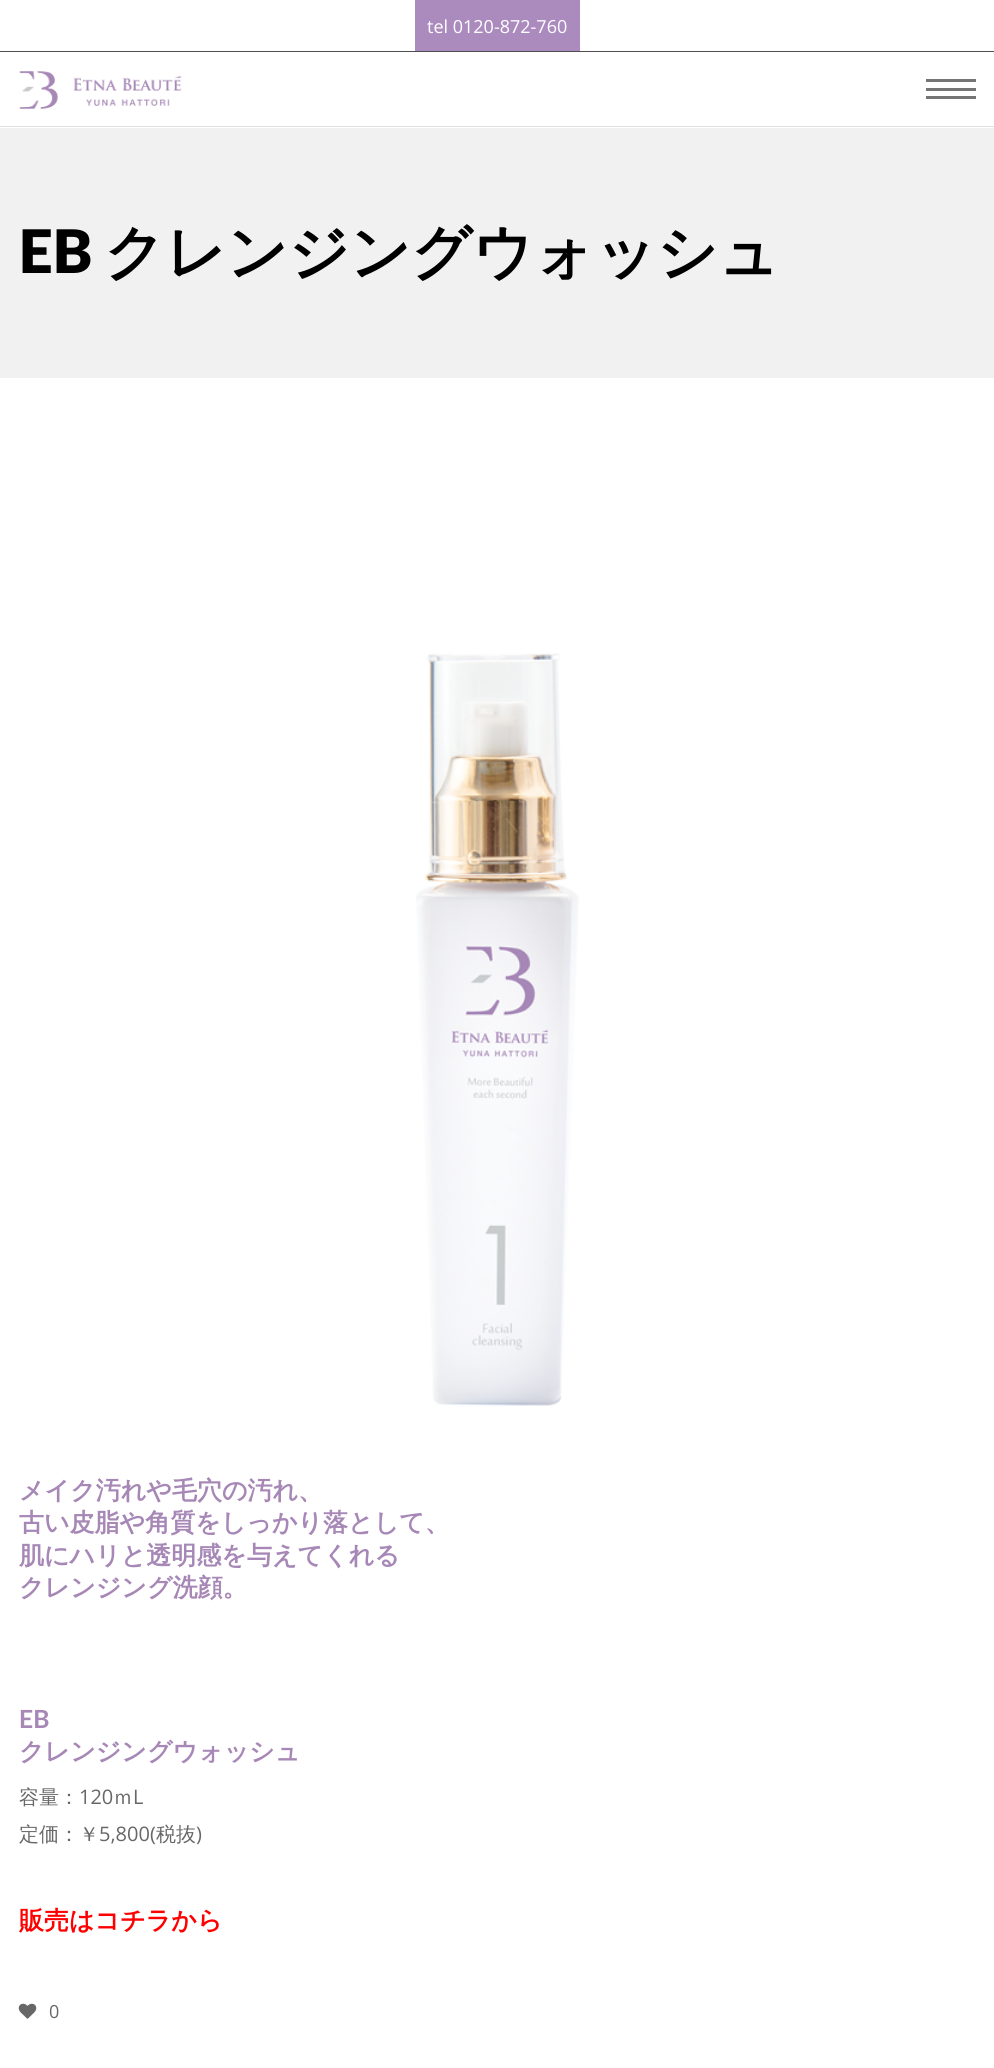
import math
import cairo

surface = cairo.ImageSurface(cairo.FORMAT_RGB24, 994, 2068)
ctx = cairo.Context(surface)
options = cairo.FontOptions()
options.set_hint_metrics(cairo.HINT_METRICS_OFF)
options.set_hint_style(cairo.HINT_STYLE_NONE)
ctx.set_font_options(options)
ctx.set_miter_limit(4)


def set_color(code):
    ctx.set_source_rgb(*(v / 255 for v in bytes.fromhex(code[-6:])))


def draw_text(x, y, s, family, size, color, bold=False, italic=False):
    ctx.select_font_face(family, cairo.FONT_SLANT_ITALIC if italic else cairo.FONT_SLANT_NORMAL, cairo.FONT_WEIGHT_BOLD if bold else cairo.FONT_WEIGHT_NORMAL)
    ctx.set_font_size(size)
    set_color(color)
    ctx.move_to(x, y)
    ctx.show_text(s)


def fill_rect(x, y, w, h, color):
    set_color(color)
    ctx.rectangle(x, y, w, h)
    ctx.fill()


def draw_image(path, x, y, w, h):
    ctx.save()
    ctx.set_source_surface(cairo.ImageSurface.create_from_png(path), x, y)
    ctx.rectangle(x, y, w, h)
    ctx.fill()
    ctx.restore()


set_color("#ffffff")
ctx.paint()
fill_rect(0, 51, 994, 1, "#4f4f4f")
fill_rect(415, 0, 165, 51, "#ab8bbe")
draw_text(427, 33, "tel 0120-872-760", "Open Sans", 18, "#ffffff")
fill_rect(0, 126, 994, 1, "#e0e0e0")
draw_image("assets/img1.png", 19, 71, 163, 38)
fill_rect(926, 88, 50, 3, "#757575")
fill_rect(926, 79, 50, 3, "#757575")
fill_rect(926, 96, 50, 3, "#757575")
fill_rect(0, 128, 994, 250, "#f1f1f1")
draw_text(19, 273, "EB", "Lato Black", 60, "#000000")
draw_text(104, 273, "クレンジングウォッシュ", "WenQuanYi Zen Hei", 60, "#000000", bold=True)
draw_image("assets/img2.png", 416, 653, 163, 753)
draw_text(19, 1499, "メイク汚れや毛穴の汚れ、", "WenQuanYi Zen Hei", 25, "#a687b6", bold=True)
draw_text(19, 1531, "古い皮脂や角質をしっかり落として、", "WenQuanYi Zen Hei", 25, "#a687b6", bold=True)
draw_text(19, 1564, "肌にハリと透明感を与えてくれる", "WenQuanYi Zen Hei", 25, "#a687b6", bold=True)
draw_text(19, 1596, "クレンジング洗顔。", "WenQuanYi Zen Hei", 25, "#a687b6", bold=True)
draw_text(19, 1728, "EB", "Lato", 25, "#a687b6", bold=True)
draw_text(19, 1760, "クレンジングウォッシュ", "WenQuanYi Zen Hei", 25, "#a687b6", bold=True)
draw_text(19, 1804, "容量：", "WenQuanYi Zen Hei Medium", 20, "#676767")
draw_text(79, 1804, "120", "Open Sans", 20, "#676767")
draw_text(113, 1804, "ｍ", "WenQuanYi Zen Hei Medium", 20, "#676767")
draw_text(133, 1804, "L", "Open Sans", 20, "#676767")
draw_text(19, 1841, "定価：￥", "WenQuanYi Zen Hei Medium", 20, "#676767")
draw_text(99, 1841, "5,800(", "Open Sans", 20, "#676767")
draw_text(156, 1841, "税抜", "WenQuanYi Zen Hei Medium", 20, "#676767")
draw_text(196, 1841, ")", "Open Sans", 20, "#676767")
draw_text(19, 1929, "販売はコチラから", "WenQuanYi Zen Hei", 25, "#ff0000", bold=True)
draw_image("assets/img3.png", 18, 2003, 19, 16)
draw_text(49, 2018, "0", "Open Sans", 18, "#676767")
surface.write_to_png("output.png")
